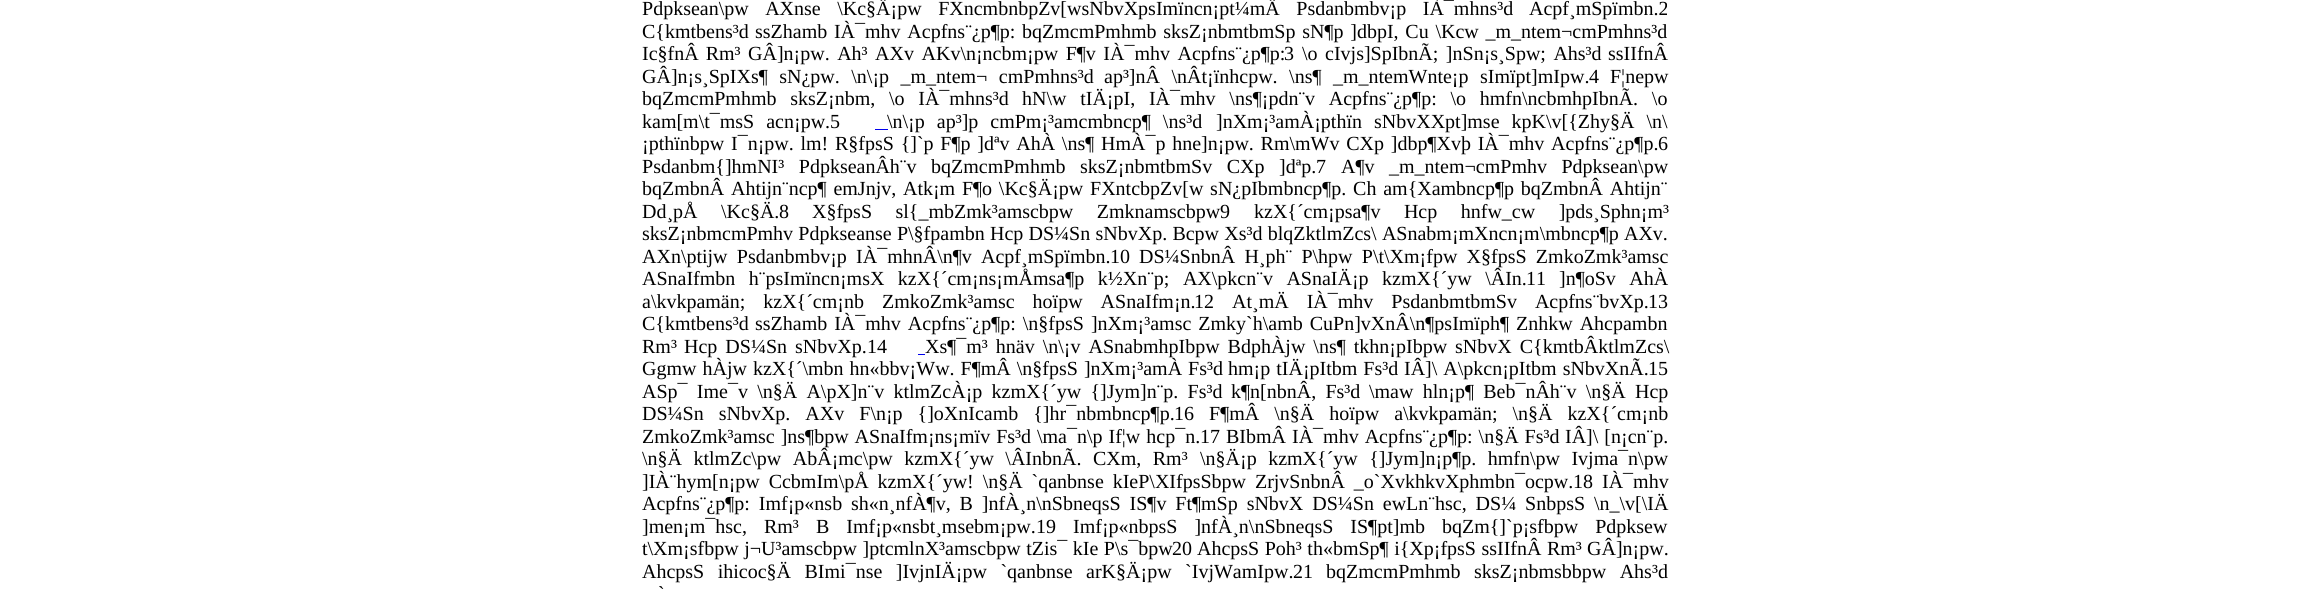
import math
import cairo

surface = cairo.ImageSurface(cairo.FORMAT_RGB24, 2310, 589)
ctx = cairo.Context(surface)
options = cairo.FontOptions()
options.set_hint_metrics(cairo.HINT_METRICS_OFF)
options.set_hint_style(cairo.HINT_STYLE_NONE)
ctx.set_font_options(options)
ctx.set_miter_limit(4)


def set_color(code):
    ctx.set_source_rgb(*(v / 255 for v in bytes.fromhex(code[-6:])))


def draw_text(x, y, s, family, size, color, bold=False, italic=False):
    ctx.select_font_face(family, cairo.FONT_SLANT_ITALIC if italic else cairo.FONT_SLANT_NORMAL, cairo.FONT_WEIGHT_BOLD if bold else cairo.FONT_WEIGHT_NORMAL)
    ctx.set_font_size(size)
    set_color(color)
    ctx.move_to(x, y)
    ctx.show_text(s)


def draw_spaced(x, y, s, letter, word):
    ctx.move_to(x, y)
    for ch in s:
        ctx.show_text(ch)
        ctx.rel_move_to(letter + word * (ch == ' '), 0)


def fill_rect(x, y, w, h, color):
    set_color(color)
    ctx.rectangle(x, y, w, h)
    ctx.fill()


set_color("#ffffff")
ctx.paint()
ctx.select_font_face("Liberation Serif")
ctx.set_font_size(20)
set_color("#000000")
draw_spaced(642, 15, "Pdpksean\\pw AXnse \\Kc§Ä¡pw FXncmbnbpZv[wsNbvXpsImïncn¡pt¼mÄ Psdanbmbv¡p IÀ¯mhns³d", 0, 11.5)
draw_text(1529, 15, "Acpf¸mSpïmbn.2", "Liberation Serif", 20, "#000000")
draw_text(642, 38, "C{kmtbens³d", "Liberation Serif", 20, "#000000")
draw_spaced(755, 38, "ssZhamb IÀ¯mhv Acpfns¨¿p¶p: bqZmcmPmhmb sksZ¡nbmtbmSp sN¶p ]dbpI, Cu \\Kcw _m_ntem¬cmPmhns³d", 0, 1.75)
draw_spaced(642, 60, "Ic§fnÂ Rm³", 0, 2)
draw_spaced(748, 60, "GÂ]n¡pw. Ah³ AXv AKv\\n¡ncbm¡pw F¶v IÀ¯mhv Acpfns¨¿p¶p:", 0, 2.5)
draw_text(1284, 60, "3", "Liberation Serif", 20, "#000000")
draw_spaced(1302, 60, "\\o cIvjs]SpIbnÃ; ]nSn¡s¸Spw; Ahs³d", 0, 2.5)
draw_text(1608, 60, "ssIIfnÂ", "Liberation Serif", 20, "#000000")
draw_spaced(642, 83, "GÂ]n¡s¸SpIXs¶ sN¿pw. \\n\\¡p _m_ntem¬ cmPmhns³d", 0, 6.5)
draw_spaced(1104, 83, "ap³]nÂ \\nÂt¡ïnhcpw. \\ns¶ _m_ntemWnte¡p sImïpt]mIpw.", 0, 6.5)
draw_text(1589, 83, "4", "Liberation Serif", 20, "#000000")
draw_text(1610, 83, "F¦nepw", "Liberation Serif", 20, "#000000")
draw_spaced(642, 105, "bqZmcmPmhmb sksZ¡nbm, \\o IÀ¯mhns³d", 0, 8.75)
draw_spaced(1022, 105, "hN\\w tIÄ¡pI, IÀ¯mhv \\ns¶¡pdn¨v Acpfns¨¿p¶p: \\o hmfn\\ncbmhpIbnÃ. \\o", 0, 8.75)
draw_spaced(642, 128, "kam[m\\t¯msS acn¡pw.", 0, 7)
draw_text(830, 128, "5", "Liberation Serif", 20, "#000000")
fill_rect(875, 129, 13, 1, "#0000ee")
set_color("#000000")
draw_spaced(887, 128, "\\n\\¡p ap³]p cmPm¡³amcmbncp¶ \\ns³d", 0, 7)
draw_spaced(1216, 128, "]nXm¡³amÀ¡pthïn sNbvXXpt]mse kpK\\v[{Zhy§Ä \\n\\", 0, 7)
draw_spaced(642, 150, "¡pthïnbpw I¯n¡pw. lm! R§fpsS {]`p F¶p ]dªv AhÀ \\ns¶ HmÀ¯p hne]n¡pw. Rm\\mWv CXp ]dbp¶Xvþ IÀ¯mhv Acpfns¨¿p¶p.", 0, 1.75)
draw_text(1658, 150, "6", "Liberation Serif", 20, "#000000")
draw_spaced(642, 173, "Psdanbm{]hmNI³ PdpkseanÂh¨v bqZmcmPmhmb sksZ¡nbmtbmSv CXp ]dªp.", 0, 9.5)
draw_text(1316, 173, "7", "Liberation Serif", 20, "#000000")
draw_spaced(1341, 173, "A¶v _m_ntem¬cmPmhv Pdpksean\\pw", 0, 9.5)
draw_spaced(642, 195, "bqZmbnÂ Ahtijn¨ncp¶ emJnjv, Atk¡m F¶o \\Kc§Ä¡pw FXntcbpZv[w sN¿pIbmbncp¶p. Ch am{Xambncp¶p bqZmbnÂ Ahtijn¨", 0, 1.75)
draw_spaced(642, 218, "Dd¸pÅ \\Kc§Ä.", 0, 18.5)
draw_text(779, 218, "8", "Liberation Serif", 20, "#000000")
draw_spaced(812, 218, "X§fpsS sl{_mbZmk³amscbpw Zmknamscbpw", 0, 18.5)
draw_text(1220, 218, "9", "Liberation Serif", 20, "#000000")
draw_spaced(1254, 218, "kzX{´cm¡psa¶v Hcp hnfw_cw ]pds¸Sphn¡m³", 0, 18.5)
draw_spaced(642, 240, "sksZ¡nbmcmPmhv Pdpkseanse P\\§fpambn Hcp DS¼Sn sNbvXp. Bcpw Xs³d blqZktlmZcs\\ ASnabm¡mXncn¡m\\mbncp¶p AXv.", 0, 0.25)
draw_spaced(642, 263, "AXn\\ptijw Psdanbmbv¡p IÀ¯mhnÂ\\n¶v Acpf¸mSpïmbn.", 0, 4.25)
draw_text(1110, 263, "10", "Liberation Serif", 20, "#000000")
draw_spaced(1139, 263, "DS¼SnbnÂ H¸ph¨ P\\hpw P\\t\\Xm¡fpw X§fpsS ZmkoZmk³amsc", 0, 4.25)
draw_spaced(642, 285, "ASnaIfmbn h¨psImïncn¡msX kzX{´cm¡ns¡mÅmsa¶p k½Xn¨p; AX\\pkcn¨v ASnaIÄ¡p kzmX{´yw \\ÂIn.", 0, 8.5)
draw_text(1526, 285, "11", "Liberation Serif", 20, "#000000")
draw_spaced(1559, 285, "]n¶oSv AhÀ", 0, 8.5)
draw_spaced(642, 308, "a\\kvkpamän; kzX{´cm¡nb ZmkoZmk³amsc hoïpw ASnaIfm¡n.", 0, 13)
draw_text(1194, 308, "12", "Liberation Serif", 20, "#000000")
draw_spaced(1232, 308, "At¸mÄ IÀ¯mhv PsdanbmtbmSv Acpfns¨bvXp.", 0, 13)
draw_text(1648, 308, "13", "Liberation Serif", 20, "#000000")
draw_text(642, 330, "C{kmtbens³d", "Liberation Serif", 20, "#000000")
draw_spaced(755, 330, "ssZhamb IÀ¯mhv Acpfns¨¿p¶p: \\n§fpsS ]nXm¡³amsc Zmky`h\\amb CuPn]vXnÂ\\n¶psImïph¶ Znhkw Ahcpambn", 0, 2)
draw_text(642, 353, "Rm³", "Liberation Serif", 20, "#000000")
draw_spaced(684, 353, "Hcp DS¼Sn sNbvXp.", 0, 3)
draw_text(867, 353, "14", "Liberation Serif", 20, "#000000")
draw_spaced(925, 353, "Xs¶¯m³ hnäv \\n\\¡v ASnabmhpIbpw BdphÀjw \\ns¶ tkhn¡pIbpw sNbvX C{kmtbÂktlmZcs\\", 0, 3)
fill_rect(918, 354, 7, 1, "#0000ee")
set_color("#000000")
draw_spaced(642, 375, "Ggmw hÀjw kzX{´\\mbn hn«bbv¡Ww. F¶mÂ \\n§fpsS ]nXm¡³amÀ Fs³d", 0, 1)
draw_spaced(1228, 375, "hm¡p tIÄ¡pItbm Fs³d", 0, 1)
draw_spaced(1404, 375, "IÂ]\\ A\\pkcn¡pItbm sNbvXnÃ.", 0, 1)
draw_text(1648, 375, "15", "Liberation Serif", 20, "#000000")
draw_spaced(642, 398, "ASp¯ Ime¯v \\n§Ä A\\pX]n¨v ktlmZcÀ¡p kzmX{´yw {]Jym]n¨p. Fs³d", 0, 4.25)
draw_spaced(1231, 398, "k¶n[nbnÂ, Fs³d", 0, 4.25)
draw_spaced(1369, 398, "\\maw hln¡p¶ Beb¯nÂh¨v \\n§Ä Hcp", 0, 4.25)
draw_spaced(642, 420, "DS¼Sn sNbvXp. AXv F\\n¡p {]oXnIcamb {]hr¯nbmbncp¶p.", 0, 10)
draw_text(1174, 420, "16", "Liberation Serif", 20, "#000000")
draw_spaced(1209, 420, "F¶mÂ \\n§Ä hoïpw a\\kvkpamän; \\n§Ä kzX{´cm¡nb", 0, 10)
draw_spaced(642, 443, "ZmkoZmk³amsc ]ns¶bpw ASnaIfm¡ns¡mïv Fs³d", 0, 1)
draw_spaced(1037, 443, "\\ma¯n\\p If¦w hcp¯n.", 0, 1)
draw_text(1200, 443, "17", "Liberation Serif", 20, "#000000")
draw_spaced(1226, 443, "BIbmÂ IÀ¯mhv Acpfns¨¿p¶p: \\n§Ä Fs³d", 0, 1)
draw_spaced(1565, 443, "IÂ]\\ [n¡cn¨p.", 0, 1)
draw_spaced(642, 465, "\\n§Ä ktlmZc\\pw AbÂ¡mc\\pw kzmX{´yw \\ÂInbnÃ. CXm, Rm³", 0, 6.5)
draw_spaced(1200, 465, "\\n§Ä¡p kzmX{´yw {]Jym]n¡p¶p. hmfn\\pw Ivjma¯n\\pw", 0, 6.5)
draw_spaced(642, 488, "]IÀ¨hym[n¡pw CcbmIm\\pÅ kzmX{´yw! \\n§Ä `qanbnse kIeP\\XIfpsSbpw ZrjvSnbnÂ _o`XvkhkvXphmbn¯ocpw.", 0, 3.9)
draw_text(1573, 488, "18", "Liberation Serif", 20, "#000000")
draw_text(1602, 488, "IÀ¯mhv", "Liberation Serif", 20, "#000000")
draw_spaced(642, 510, "Acpfns¨¿p¶p: Imf¡p«nsb sh«n¸nfÀ¶v, B ]nfÀ¸n\\nSbneqsS IS¶v Ft¶mSp sNbvX DS¼Sn ewLn¨hsc, DS¼ SnbpsS \\n_\\v[\\IÄ", 0, 3.9)
draw_spaced(642, 533, "]men¡m¯hsc, Rm³", 0, 12)
draw_spaced(816, 533, "B Imf¡p«nsbt¸msebm¡pw.", 0, 12)
draw_text(1036, 533, "19", "Liberation Serif", 20, "#000000")
draw_spaced(1073, 533, "Imf¡p«nbpsS ]nfÀ¸n\\nSbneqsS IS¶pt]mb bqZm{]`p¡sfbpw Pdpksew", 0, 12)
draw_spaced(642, 555, "t\\Xm¡sfbpw j¬U³amscbpw ]ptcmlnX³amscbpw tZis¯ kIe P\\s¯bpw", 0, 0.5)
draw_text(1172, 555, "20", "Liberation Serif", 20, "#000000")
draw_spaced(1197, 555, "AhcpsS Poh³ th«bmSp¶ i{Xp¡fpsS ssIIfnÂ Rm³", 0, 0.5)
draw_text(1587, 555, "GÂ]n¡pw.", "Liberation Serif", 20, "#000000")
draw_spaced(642, 578, "AhcpsS ihicoc§Ä BImi¯nse ]IvjnIÄ¡pw `qanbnse arK§Ä¡pw `IvjWamIpw.", 0, 8.5)
draw_text(1293, 578, "21", "Liberation Serif", 20, "#000000")
draw_spaced(1326, 578, "bqZmcmPmhmb sksZ¡nbmsbbpw Ahs³d", 0, 8.5)
draw_spaced(658, 600, "`", 0, 2)
surface.write_to_png("output.png")
